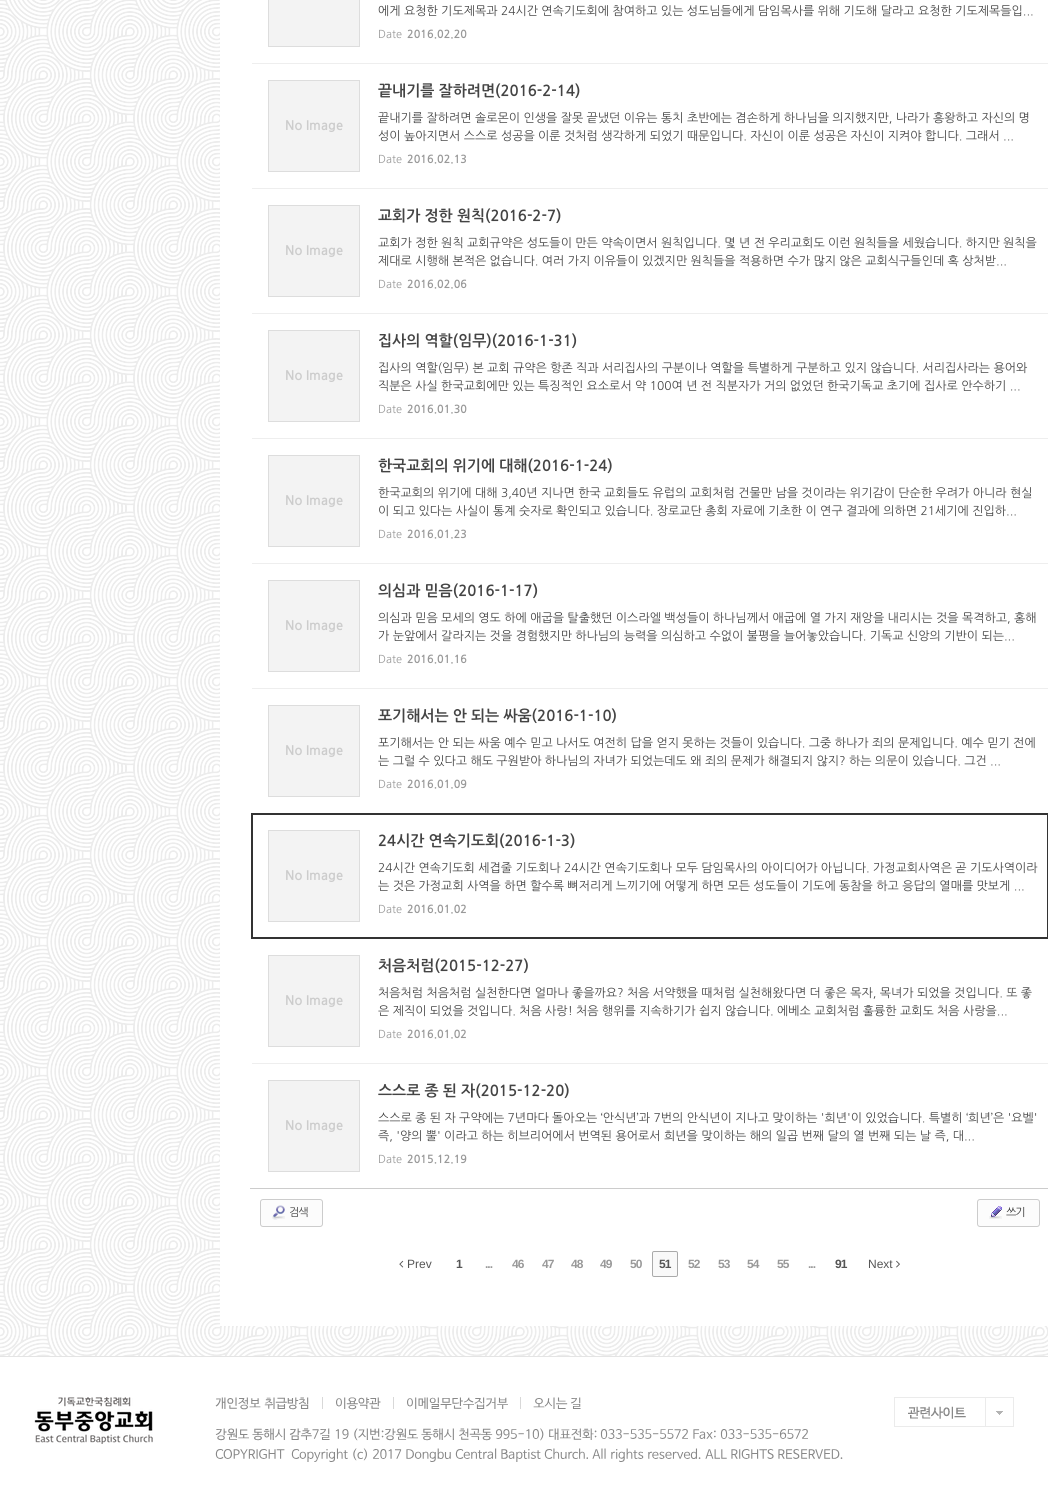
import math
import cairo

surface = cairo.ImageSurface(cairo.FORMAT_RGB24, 1048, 1504)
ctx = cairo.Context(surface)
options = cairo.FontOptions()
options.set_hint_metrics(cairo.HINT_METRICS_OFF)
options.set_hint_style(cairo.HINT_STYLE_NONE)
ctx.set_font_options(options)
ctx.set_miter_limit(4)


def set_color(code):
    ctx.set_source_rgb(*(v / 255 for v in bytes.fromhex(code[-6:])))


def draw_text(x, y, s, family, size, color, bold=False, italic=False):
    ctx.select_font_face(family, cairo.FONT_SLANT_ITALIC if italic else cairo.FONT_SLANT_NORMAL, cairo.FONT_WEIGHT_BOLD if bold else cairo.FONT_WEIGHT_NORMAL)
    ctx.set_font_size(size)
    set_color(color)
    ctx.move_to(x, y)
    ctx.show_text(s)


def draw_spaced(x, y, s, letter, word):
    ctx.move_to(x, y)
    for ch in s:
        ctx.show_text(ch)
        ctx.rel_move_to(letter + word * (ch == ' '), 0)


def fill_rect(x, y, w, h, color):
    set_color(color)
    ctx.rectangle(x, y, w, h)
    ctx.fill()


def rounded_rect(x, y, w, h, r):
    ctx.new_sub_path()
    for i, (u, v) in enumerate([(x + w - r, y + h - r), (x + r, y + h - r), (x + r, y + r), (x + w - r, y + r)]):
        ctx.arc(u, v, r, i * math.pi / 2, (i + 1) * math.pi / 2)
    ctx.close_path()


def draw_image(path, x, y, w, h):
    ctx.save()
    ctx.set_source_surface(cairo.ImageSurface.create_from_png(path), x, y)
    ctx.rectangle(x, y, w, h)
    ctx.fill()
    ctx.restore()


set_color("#ffffff")
ctx.paint()
draw_image("assets/img1.png", 0, 0, 1048, 1356)
fill_rect(220, 0, 828, 1326, "#ffffff")
fill_rect(252, 63, 796, 1, "#eeeeee")
set_color("#f3f3f3")
ctx.rectangle(268.5, -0.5, 91, 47)
ctx.fill_preserve()
set_color("#dddddd")
ctx.set_line_width(1)
ctx.stroke()
draw_text(378, 15, "에게 요청한 기도제목과 24시간 연속기도회에 참여하고 있는 성도님들에게 담임목사를 위해 기도해 달라고 요청한 기도제목들입...", "NanumGothic", 12, "#444444")
draw_text(378, 38, "Date", "NanumGothic", 11, "#999999")
draw_text(407, 38, "2016.02.20", "NanumGothic", 11, "#999999", bold=True)
fill_rect(252, 188, 796, 1, "#eeeeee")
draw_text(378, 96, "끝내기를 잘하려면(2016-2-14)", "NanumGothic", 15, "#444444", bold=True)
set_color("#f3f3f3")
ctx.rectangle(268.5, 80.5, 91, 91)
ctx.fill_preserve()
set_color("#dddddd")
ctx.stroke()
draw_text(285, 130, "No Image", "NanumGothic", 13, "#cccccc", bold=True)
draw_text(378, 122, "끝내기를 잘하려면 솔로몬이 인생을 잘못 끝냈던 이유는 통치 초반에는 겸손하게 하나님을 의지했지만, 나라가 흥왕하고 자신의 명", "NanumGothic", 12, "#444444")
draw_text(378, 140, "성이 높아지면서 스스로 성공을 이룬 것처럼 생각하게 되었기 때문입니다. 자신이 이룬 성공은 자신이 지켜야 합니다. 그래서 ...", "NanumGothic", 12, "#444444")
draw_text(378, 163, "Date", "NanumGothic", 11, "#999999")
draw_text(407, 163, "2016.02.13", "NanumGothic", 11, "#999999", bold=True)
fill_rect(252, 313, 796, 1, "#eeeeee")
draw_text(378, 221, "교회가 정한 원칙(2016-2-7)", "NanumGothic", 15, "#444444", bold=True)
set_color("#f3f3f3")
ctx.rectangle(268.5, 205.5, 91, 91)
ctx.fill_preserve()
set_color("#dddddd")
ctx.stroke()
draw_text(285, 255, "No Image", "NanumGothic", 13, "#cccccc", bold=True)
draw_text(378, 247, "교회가 정한 원칙 교회규약은 성도들이 만든 약속이면서 원칙입니다. 몇 년 전 우리교회도 이런 원칙들을 세웠습니다. 하지만 원칙을", "NanumGothic", 12, "#444444")
draw_text(378, 265, "제대로 시행해 본적은 없습니다. 여러 가지 이유들이 있겠지만 원칙들을 적용하면 수가 많지 않은 교회식구들인데 혹 상처받...", "NanumGothic", 12, "#444444")
draw_text(378, 288, "Date", "NanumGothic", 11, "#999999")
draw_text(407, 288, "2016.02.06", "NanumGothic", 11, "#999999", bold=True)
fill_rect(252, 438, 796, 1, "#eeeeee")
draw_text(378, 346, "집사의 역할(임무)(2016-1-31)", "NanumGothic", 15, "#444444", bold=True)
set_color("#f3f3f3")
ctx.rectangle(268.5, 330.5, 91, 91)
ctx.fill_preserve()
set_color("#dddddd")
ctx.stroke()
draw_text(285, 380, "No Image", "NanumGothic", 13, "#cccccc", bold=True)
draw_text(378, 372, "집사의 역할(임무) 본 교회 규약은 항존 직과 서리집사의 구분이나 역할을 특별하게 구분하고 있지 않습니다. 서리집사라는 용어와", "NanumGothic", 12, "#444444")
draw_text(378, 390, "직분은 사실 한국교회에만 있는 특징적인 요소로서 약 100여 년 전 직분자가 거의 없었던 한국기독교 초기에 집사로 안수하기 ...", "NanumGothic", 12, "#444444")
draw_text(378, 413, "Date", "NanumGothic", 11, "#999999")
draw_text(407, 413, "2016.01.30", "NanumGothic", 11, "#999999", bold=True)
fill_rect(252, 563, 796, 1, "#eeeeee")
draw_text(378, 471, "한국교회의 위기에 대해(2016-1-24)", "NanumGothic", 15, "#444444", bold=True)
set_color("#f3f3f3")
ctx.rectangle(268.5, 455.5, 91, 91)
ctx.fill_preserve()
set_color("#dddddd")
ctx.stroke()
draw_text(285, 505, "No Image", "NanumGothic", 13, "#cccccc", bold=True)
draw_text(378, 497, "한국교회의 위기에 대해 3,40년 지나면 한국 교회들도 유럽의 교회처럼 건물만 남을 것이라는 위기감이 단순한 우려가 아니라 현실", "NanumGothic", 12, "#444444")
draw_text(378, 515, "이 되고 있다는 사실이 통계 숫자로 확인되고 있습니다. 장로교단 총회 자료에 기초한 이 연구 결과에 의하면 21세기에 진입하...", "NanumGothic", 12, "#444444")
draw_text(378, 538, "Date", "NanumGothic", 11, "#999999")
draw_text(407, 538, "2016.01.23", "NanumGothic", 11, "#999999", bold=True)
fill_rect(252, 688, 796, 1, "#eeeeee")
draw_text(378, 596, "의심과 믿음(2016-1-17)", "NanumGothic", 15, "#444444", bold=True)
set_color("#f3f3f3")
ctx.rectangle(268.5, 580.5, 91, 91)
ctx.fill_preserve()
set_color("#dddddd")
ctx.stroke()
draw_text(285, 630, "No Image", "NanumGothic", 13, "#cccccc", bold=True)
draw_text(378, 622, "의심과 믿음 모세의 영도 하에 애굽을 탈출했던 이스라엘 백성들이 하나님께서 애굽에 열 가지 재앙을 내리시는 것을 목격하고, 홍해", "NanumGothic", 12, "#444444")
draw_text(378, 640, "가 눈앞에서 갈라지는 것을 경험했지만 하나님의 능력을 의심하고 수없이 불평을 늘어놓았습니다. 기독교 신앙의 기반이 되는...", "NanumGothic", 12, "#444444")
draw_text(378, 663, "Date", "NanumGothic", 11, "#999999")
draw_text(407, 663, "2016.01.16", "NanumGothic", 11, "#999999", bold=True)
draw_text(378, 721, "포기해서는 안 되는 싸움(2016-1-10)", "NanumGothic", 15, "#444444", bold=True)
set_color("#f3f3f3")
ctx.rectangle(268.5, 705.5, 91, 91)
ctx.fill_preserve()
set_color("#dddddd")
ctx.stroke()
draw_text(285, 755, "No Image", "NanumGothic", 13, "#cccccc", bold=True)
draw_text(378, 747, "포기해서는 안 되는 싸움 예수 믿고 나서도 여전히 답을 얻지 못하는 것들이 있습니다. 그중 하나가 죄의 문제입니다. 예수 믿기 전에", "NanumGothic", 12, "#444444")
draw_text(378, 765, "는 그럴 수 있다고 해도 구원받아 하나님의 자녀가 되었는데도 왜 죄의 문제가 해결되지 않지? 하는 의문이 있습니다. 그건 ...", "NanumGothic", 12, "#444444")
draw_text(378, 788, "Date", "NanumGothic", 11, "#999999")
draw_text(407, 788, "2016.01.09", "NanumGothic", 11, "#999999", bold=True)
set_color("#f3f3f3")
ctx.rectangle(268.5, 830.5, 91, 91)
ctx.fill_preserve()
set_color("#dddddd")
ctx.stroke()
ctx.rectangle(252, 814, 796, 124)
set_color("#333333")
ctx.set_line_width(2)
ctx.stroke()
draw_text(378, 846, "24시간 연속기도회(2016-1-3)", "NanumGothic", 15, "#444444", bold=True)
draw_text(285, 880, "No Image", "NanumGothic", 13, "#cccccc", bold=True)
draw_text(378, 872, "24시간 연속기도회 세겹줄 기도회나 24시간 연속기도회나 모두 담임목사의 아이디어가 아닙니다. 가정교회사역은 곧 기도사역이라", "NanumGothic", 12, "#444444")
draw_text(378, 890, "는 것은 가정교회 사역을 하면 할수록 뼈저리게 느끼기에 어떻게 하면 모든 성도들이 기도에 동참을 하고 응답의 열매를 맛보게 ...", "NanumGothic", 12, "#444444")
draw_text(378, 913, "Date", "NanumGothic", 11, "#999999")
draw_text(407, 913, "2016.01.02", "NanumGothic", 11, "#999999", bold=True)
fill_rect(252, 1063, 796, 1, "#eeeeee")
draw_text(378, 971, "처음처럼(2015-12-27)", "NanumGothic", 15, "#444444", bold=True)
set_color("#f3f3f3")
ctx.rectangle(268.5, 955.5, 91, 91)
ctx.fill_preserve()
set_color("#dddddd")
ctx.set_line_width(1)
ctx.stroke()
draw_text(285, 1005, "No Image", "NanumGothic", 13, "#cccccc", bold=True)
draw_text(378, 997, "처음처럼 처음처럼 실천한다면 얼마나 좋을까요? 처음 서약했을 때처럼 실천해왔다면 더 좋은 목자, 목녀가 되었을 것입니다. 또 좋", "NanumGothic", 12, "#444444")
draw_text(378, 1015, "은 제직이 되었을 것입니다. 처음 사랑! 처음 행위를 지속하기가 쉽지 않습니다. 에베소 교회처럼 훌륭한 교회도 처음 사랑을...", "NanumGothic", 12, "#444444")
draw_text(378, 1038, "Date", "NanumGothic", 11, "#999999")
draw_text(407, 1038, "2016.01.02", "NanumGothic", 11, "#999999", bold=True)
draw_text(378, 1096, "스스로 종 된 자(2015-12-20)", "NanumGothic", 15, "#444444", bold=True)
set_color("#f3f3f3")
ctx.rectangle(268.5, 1080.5, 91, 91)
ctx.fill_preserve()
set_color("#dddddd")
ctx.stroke()
draw_text(285, 1130, "No Image", "NanumGothic", 13, "#cccccc", bold=True)
draw_text(378, 1122, "스스로 종 된 자 구약에는 7년마다 돌아오는 ‘안식년’과 7번의 안식년이 지나고 맞이하는 '희년'이 있었습니다. 특별히 ‘희년’은 '요벨'", "NanumGothic", 12, "#444444")
draw_text(378, 1140, "즉, '양의 뿔' 이라고 하는 히브리어에서 번역된 용어로서 희년을 맞이하는 해의 일곱 번째 달의 열 번째 되는 날 즉, 대...", "NanumGothic", 12, "#444444")
draw_text(378, 1163, "Date", "NanumGothic", 11, "#999999")
draw_text(407, 1163, "2015.12.19", "NanumGothic", 11, "#999999", bold=True)
fill_rect(250, 1188, 798, 1, "#cccccc")
set_color("#fcfcfc")
rounded_rect(260.5, 1199.5, 62, 27, 2.5)
ctx.fill_preserve()
set_color("#cccccc")
ctx.stroke()
draw_image("assets/img2.png", 272, 1205, 13, 15)
ctx.select_font_face("NanumGothic")
set_color("#444444")
draw_spaced(289, 1216, "검색", -1, 0)
set_color("#fcfcfc")
rounded_rect(977.5, 1199.5, 62, 27, 2.5)
ctx.fill_preserve()
set_color("#cccccc")
ctx.stroke()
draw_image("assets/img3.png", 989, 1206, 13, 13)
set_color("#333333")
draw_spaced(1006, 1216, "쓰기", -1, 0)
draw_image("assets/img4.png", 399, 1260, 5, 8)
draw_text(407, 1268, "Prev", "Liberation Sans", 12, "#555555")
ctx.select_font_face("Liberation Sans", cairo.FONT_SLANT_NORMAL, cairo.FONT_WEIGHT_BOLD)
draw_spaced(456, 1268, "1", -1, 0)
set_color("#999999")
draw_spaced(485, 1268, "...", -1, 0)
draw_spaced(512, 1268, "46", -1, 0)
draw_spaced(542, 1268, "47", -1, 0)
draw_spaced(571, 1268, "48", -1, 0)
draw_spaced(600, 1268, "49", -1, 0)
draw_spaced(630, 1268, "50", -1, 0)
set_color("#f9f9f9")
rounded_rect(652.5, 1251.5, 25, 25, 1.5)
ctx.fill_preserve()
set_color("#aaaaaa")
ctx.stroke()
set_color("#555555")
draw_spaced(659, 1268, "51", -1, 0)
set_color("#999999")
draw_spaced(688, 1268, "52", -1, 0)
draw_spaced(718, 1268, "53", -1, 0)
draw_spaced(747, 1268, "54", -1, 0)
draw_spaced(777, 1268, "55", -1, 0)
draw_spaced(808, 1268, "...", -1, 0)
set_color("#555555")
draw_spaced(835, 1268, "91", -1, 0)
draw_text(868, 1268, "Next", "Liberation Sans", 12, "#555555")
draw_image("assets/img5.png", 896, 1260, 4, 8)
fill_rect(0, 1356, 1048, 1, "#e4e4e4")
draw_image("assets/img6.png", 34, 1397, 119, 47)
draw_image("assets/img7.png", 215, 1397, 46, 13)
draw_image("assets/img8.png", 264, 1397, 45, 13)
fill_rect(322, 1397, 1, 12, "#d8d8d8")
draw_image("assets/img9.png", 336, 1397, 45, 13)
fill_rect(393, 1397, 1, 12, "#d8d8d8")
draw_image("assets/img10.png", 407, 1397, 101, 12)
fill_rect(520, 1397, 1, 12, "#d8d8d8")
draw_image("assets/img11.png", 533, 1397, 35, 12)
draw_image("assets/img12.png", 571, 1397, 10, 12)
draw_image("assets/img13.png", 894, 1397, 120, 30)
draw_image("assets/img14.png", 215, 1428, 34, 13)
draw_image("assets/img15.png", 252, 1428, 33, 13)
draw_image("assets/img16.png", 289, 1428, 41, 12)
draw_image("assets/img17.png", 335, 1429, 14, 10)
draw_image("assets/img18.png", 354, 1428, 64, 13)
draw_image("assets/img15.png", 421, 1428, 33, 13)
draw_image("assets/img19.png", 459, 1428, 34, 13)
draw_image("assets/img20.png", 496, 1428, 48, 13)
draw_image("assets/img21.png", 549, 1428, 48, 12)
draw_image("assets/img22.png", 600, 1429, 88, 10)
draw_image("assets/img23.png", 693, 1429, 23, 10)
draw_image("assets/img24.png", 720, 1429, 88, 10)
draw_image("assets/img25.png", 215, 1449, 70, 10)
draw_image("assets/img26.png", 291, 1448, 57, 14)
draw_image("assets/img27.png", 353, 1448, 14, 13)
draw_image("assets/img28.png", 373, 1449, 29, 10)
draw_image("assets/img29.png", 406, 1448, 45, 14)
draw_image("assets/img30.png", 455, 1448, 42, 11)
draw_image("assets/img31.png", 501, 1449, 40, 13)
draw_image("assets/img32.png", 544, 1448, 44, 11)
draw_image("assets/img33.png", 592, 1448, 14, 11)
draw_image("assets/img34.png", 611, 1448, 33, 14)
draw_image("assets/img35.png", 648, 1448, 53, 11)
draw_image("assets/img36.png", 705, 1449, 22, 10)
draw_image("assets/img37.png", 731, 1449, 43, 10)
draw_image("assets/img38.png", 778, 1449, 65, 10)
surface.write_to_png("output.png")
